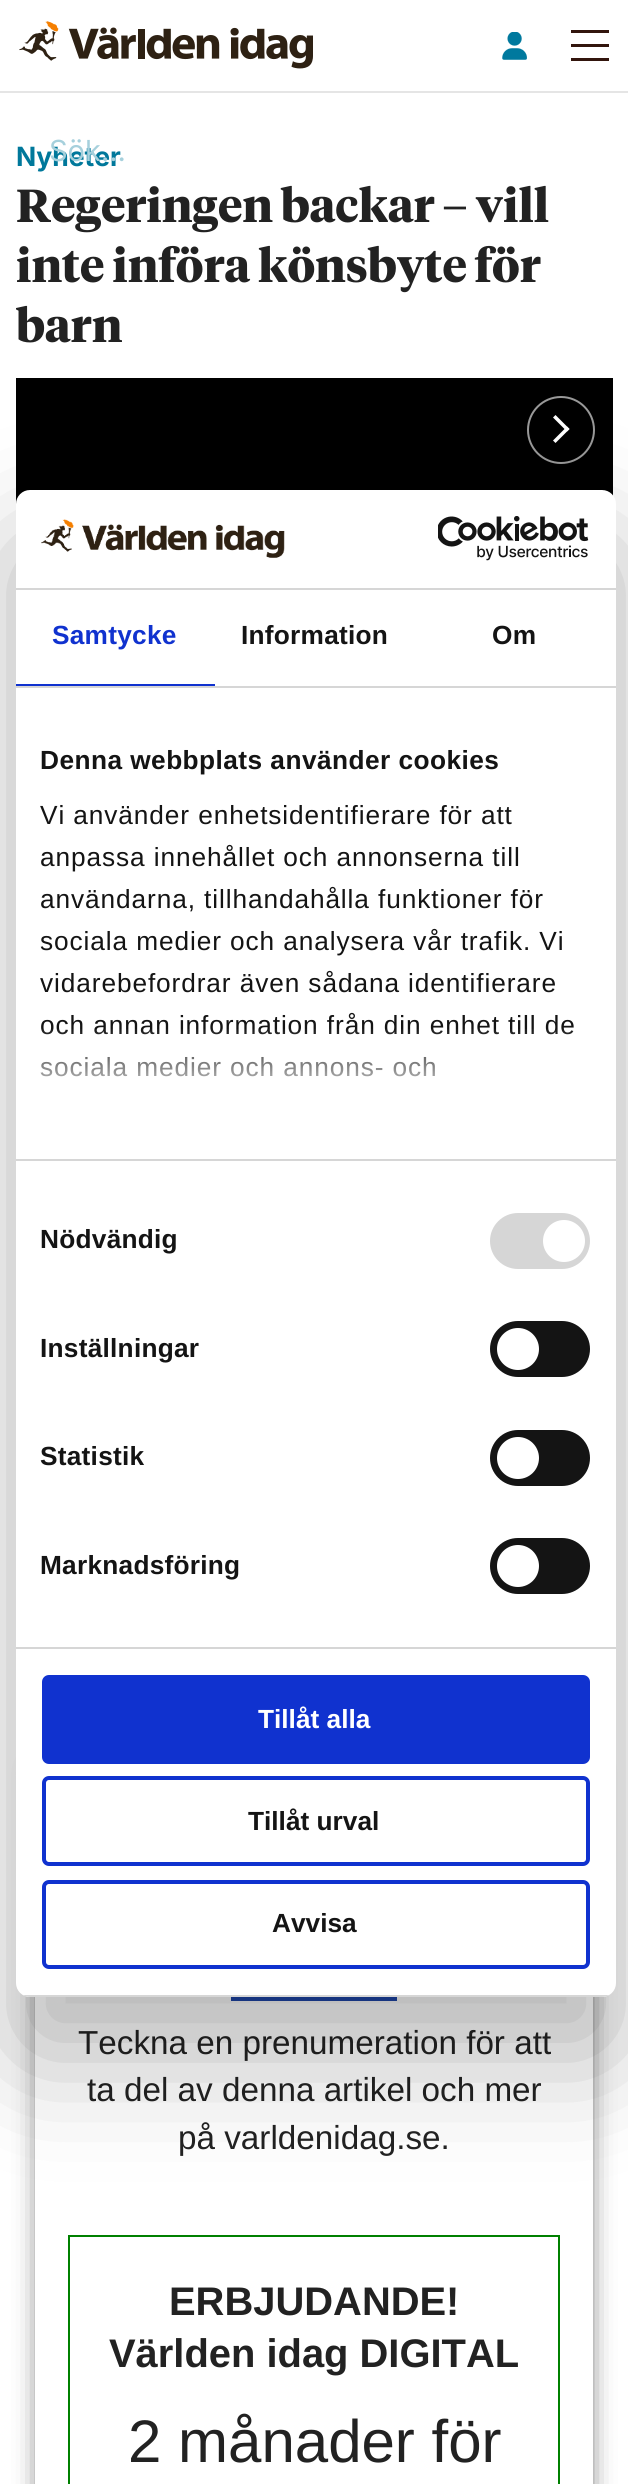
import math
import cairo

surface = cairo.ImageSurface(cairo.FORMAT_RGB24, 628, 2484)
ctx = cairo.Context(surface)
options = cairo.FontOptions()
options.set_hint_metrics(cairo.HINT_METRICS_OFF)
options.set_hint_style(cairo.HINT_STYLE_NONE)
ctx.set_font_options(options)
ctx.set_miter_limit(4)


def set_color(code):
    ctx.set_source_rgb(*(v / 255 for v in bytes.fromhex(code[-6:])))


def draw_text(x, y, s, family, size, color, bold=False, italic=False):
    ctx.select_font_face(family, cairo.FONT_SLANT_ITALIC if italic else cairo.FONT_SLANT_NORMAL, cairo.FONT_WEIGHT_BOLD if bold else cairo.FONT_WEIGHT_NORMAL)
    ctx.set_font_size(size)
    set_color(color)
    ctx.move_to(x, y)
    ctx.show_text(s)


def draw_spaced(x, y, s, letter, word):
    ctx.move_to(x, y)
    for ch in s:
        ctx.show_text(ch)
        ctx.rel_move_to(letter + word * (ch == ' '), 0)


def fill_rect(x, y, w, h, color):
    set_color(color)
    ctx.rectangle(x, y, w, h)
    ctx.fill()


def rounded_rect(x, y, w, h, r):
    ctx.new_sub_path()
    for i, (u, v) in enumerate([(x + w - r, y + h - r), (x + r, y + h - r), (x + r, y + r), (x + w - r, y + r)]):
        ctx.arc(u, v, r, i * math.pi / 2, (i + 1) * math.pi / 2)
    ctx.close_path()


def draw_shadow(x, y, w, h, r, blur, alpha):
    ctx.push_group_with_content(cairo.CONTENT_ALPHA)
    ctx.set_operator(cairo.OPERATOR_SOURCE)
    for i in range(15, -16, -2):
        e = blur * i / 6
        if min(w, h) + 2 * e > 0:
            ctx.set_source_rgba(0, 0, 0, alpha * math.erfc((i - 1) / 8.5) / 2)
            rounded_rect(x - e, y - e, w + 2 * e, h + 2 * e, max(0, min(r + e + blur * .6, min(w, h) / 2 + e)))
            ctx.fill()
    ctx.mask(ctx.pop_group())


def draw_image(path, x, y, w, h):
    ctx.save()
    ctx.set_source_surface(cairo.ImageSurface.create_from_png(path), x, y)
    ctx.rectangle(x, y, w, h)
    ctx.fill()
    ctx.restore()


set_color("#ffffff")
ctx.paint()
fill_rect(0, 91, 628, 2, "#e5e5e5")
draw_image("assets/img1.png", 19, 21, 294, 48)
draw_image("assets/img2.png", 502, 32, 25, 28)
fill_rect(571, 30, 38, 3, "#32150d")
fill_rect(571, 44, 38, 3, "#32150d")
fill_rect(571, 58, 38, 3, "#32150d")
draw_text(16, 166, "Nyheter", "Inter", 26.5, "#00789b", bold=True)
draw_text(49, 161, "Sök...", "Inter", 29, "#a6d0dc")
draw_text(16, 222, "Regeringen backar – vill", "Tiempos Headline", 46.1, "#222222", bold=True)
draw_text(16, 282, "inte införa könsbyte för", "Tiempos Headline", 46.1, "#222222", bold=True)
draw_text(16, 342, "barn", "Tiempos Headline", 46.1, "#222222", bold=True)
fill_rect(16, 378, 597, 126, "#000000")
ctx.new_path()
ctx.arc(561, 430, 33, 0, 2 * math.pi)
set_color("#999999")
ctx.stroke()
set_color("#ffffff")
ctx.new_path()
ctx.move_to(567, 431.5)
ctx.line_to(553, 417.5)
ctx.line_to(555.5, 415)
ctx.line_to(569.5, 429)
ctx.close_path()
ctx.fill()
ctx.new_path()
ctx.move_to(555.5, 443)
ctx.line_to(553, 440.5)
ctx.line_to(567, 426.5)
ctx.line_to(569.5, 429)
ctx.close_path()
ctx.fill()
ctx.save()
ctx.set_fill_rule(cairo.FILL_RULE_EVEN_ODD)
ctx.new_path()
ctx.move_to(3, 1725)
ctx.line_to(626, 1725)
ctx.line_to(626, 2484)
ctx.line_to(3, 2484)
ctx.close_path()
ctx.move_to(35, 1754)
ctx.line_to(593, 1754)
ctx.line_to(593, 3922)
ctx.line_to(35, 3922)
ctx.close_path()
ctx.clip()
set_color("#000000")
draw_shadow(46, 1768, 537, 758, 0, 14, 1)
ctx.restore()
fill_rect(231, 1997, 166, 4, "#1e45aa")
draw_text(78, 2054, "Teckna en prenumeration för att", "Liberation Sans", 33.25, "#222222")
draw_text(87, 2101, "ta del av denna artikel och mer", "Liberation Sans", 33.25, "#222222")
draw_text(178, 2149, "på varldenidag.se.", "Liberation Sans", 33.25, "#222222")
ctx.rectangle(69, 2236, 490, 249)
set_color("#008000")
ctx.stroke()
draw_text(169, 2315, "ERBJUDANDE!", "Liberation Sans", 39.9, "#222222", bold=True)
draw_text(109, 2367, "Världen idag DIGITAL", "Liberation Sans", 39.9, "#222222", bold=True)
draw_text(128, 2462, "2 månader för", "Liberation Sans", 60, "#222222")
set_color("#000000")
draw_shadow(16, 546, 600, 1507, 14, 59.5, 0.3)
set_color("#ffffff")
rounded_rect(16, 490, 600, 1507, 14)
ctx.fill()
fill_rect(16, 588, 600, 2, "#d6d6d6")
draw_image("assets/img3.png", 41, 519, 244, 39)
draw_image("assets/img4.png", 438, 516, 151, 45)
fill_rect(16, 686, 600, 2, "#d6d6d6")
fill_rect(16, 684, 199, 2, "#1032cf")
ctx.select_font_face("Liberation Sans", cairo.FONT_SLANT_NORMAL, cairo.FONT_WEIGHT_BOLD)
ctx.set_font_size(26.25)
draw_spaced(52, 644, "Samtycke", 0.25, 0)
set_color("#141414")
draw_spaced(241, 644, "Information", 0.25, 0)
draw_spaced(492, 644, "Om", 0.25, 0)
fill_rect(16, 1159, 600, 2, "#d6d6d6")
set_color("#141414")
draw_spaced(40, 769, "Denna webbplats använder cookies", 0.45, 0)
ctx.select_font_face("Liberation Sans")
draw_spaced(40, 824, "Vi använder enhetsidentifierare för att", 0.9, 0)
draw_spaced(40, 866, "anpassa innehållet och annonserna till", 0.9, 0)
draw_spaced(40, 908, "användarna, tillhandahålla funktioner för", 0.9, 0)
draw_spaced(40, 950, "sociala medier och analysera vår trafik. Vi", 0.9, 0)
draw_spaced(40, 992, "vidarebefordrar även sådana identifierare", 0.9, 0)
draw_spaced(40, 1034, "och annan information från din enhet till de", 0.9, 0)
draw_spaced(40, 1076, "sociala medier och annons- och", 0.9, 0)
gradient = cairo.LinearGradient(304, 1158, 304, 1027)
gradient.add_color_stop_rgba(0, 1, 1, 1, 1)
gradient.add_color_stop_rgba(0.5, 1, 1, 1, 0.8)
gradient.add_color_stop_rgba(1, 1, 1, 1, 0)
ctx.set_source(gradient)
ctx.rectangle(41, 1029, 532, 48)
ctx.fill()
fill_rect(16, 1647, 600, 2, "#d6d6d6")
ctx.select_font_face("Liberation Sans", cairo.FONT_SLANT_NORMAL, cairo.FONT_WEIGHT_BOLD)
set_color("#141414")
draw_spaced(40, 1248, "Nödvändig", 0.25, 0)
set_color("#d6d6d6")
rounded_rect(490, 1213, 100, 56, 28)
ctx.fill()
set_color("#ffffff")
ctx.arc(564, 1241, 21, 0, 2 * math.pi)
ctx.fill()
set_color("#141414")
draw_spaced(40, 1357, "Inställningar", 0.25, 0)
rounded_rect(490, 1321, 100, 56, 28)
ctx.fill()
set_color("#ffffff")
ctx.arc(518, 1349, 21, 0, 2 * math.pi)
ctx.fill()
set_color("#141414")
draw_spaced(40, 1465, "Statistik", 0.25, 0)
rounded_rect(490, 1430, 100, 56, 28)
ctx.fill()
set_color("#ffffff")
ctx.arc(518, 1458, 21, 0, 2 * math.pi)
ctx.fill()
set_color("#141414")
draw_spaced(40, 1574, "Marknadsföring", 0.25, 0)
rounded_rect(490, 1538, 100, 56, 28)
ctx.fill()
set_color("#ffffff")
ctx.arc(518, 1566, 21, 0, 2 * math.pi)
ctx.fill()
ctx.save()
rounded_rect(16, 490, 600, 1507, 14)
ctx.clip()
fill_rect(16, 1995, 600, 2, "#d6d6d6")
ctx.restore()
set_color("#1032cf")
rounded_rect(44, 1677, 544, 85, 5)
ctx.fill_preserve()
ctx.set_line_width(4)
ctx.stroke()
draw_text(258, 1728, "Tillåt alla", "Liberation Sans", 26.25, "#ffffff", bold=True)
rounded_rect(44, 1778, 544, 86, 5)
set_color("#1032cf")
ctx.stroke()
draw_text(248, 1830, "Tillåt urval", "Liberation Sans", 26.25, "#141414", bold=True)
rounded_rect(44, 1882, 544, 85, 5)
set_color("#1032cf")
ctx.stroke()
draw_text(272, 1932, "Avvisa", "Liberation Sans", 26.25, "#141414", bold=True)
surface.write_to_png("output.png")
